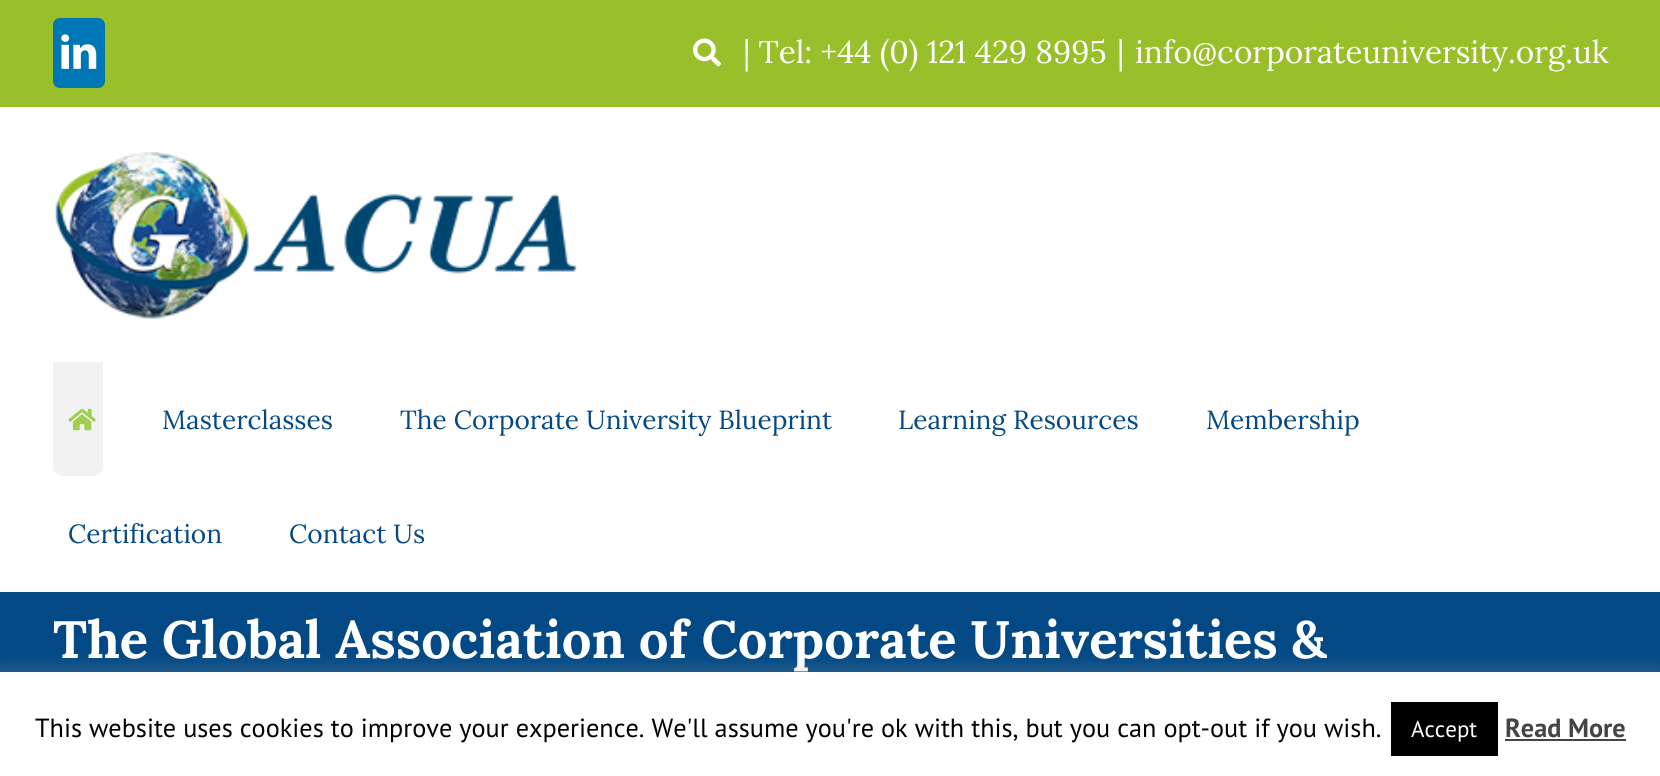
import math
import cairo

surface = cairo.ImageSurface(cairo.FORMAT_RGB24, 1660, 776)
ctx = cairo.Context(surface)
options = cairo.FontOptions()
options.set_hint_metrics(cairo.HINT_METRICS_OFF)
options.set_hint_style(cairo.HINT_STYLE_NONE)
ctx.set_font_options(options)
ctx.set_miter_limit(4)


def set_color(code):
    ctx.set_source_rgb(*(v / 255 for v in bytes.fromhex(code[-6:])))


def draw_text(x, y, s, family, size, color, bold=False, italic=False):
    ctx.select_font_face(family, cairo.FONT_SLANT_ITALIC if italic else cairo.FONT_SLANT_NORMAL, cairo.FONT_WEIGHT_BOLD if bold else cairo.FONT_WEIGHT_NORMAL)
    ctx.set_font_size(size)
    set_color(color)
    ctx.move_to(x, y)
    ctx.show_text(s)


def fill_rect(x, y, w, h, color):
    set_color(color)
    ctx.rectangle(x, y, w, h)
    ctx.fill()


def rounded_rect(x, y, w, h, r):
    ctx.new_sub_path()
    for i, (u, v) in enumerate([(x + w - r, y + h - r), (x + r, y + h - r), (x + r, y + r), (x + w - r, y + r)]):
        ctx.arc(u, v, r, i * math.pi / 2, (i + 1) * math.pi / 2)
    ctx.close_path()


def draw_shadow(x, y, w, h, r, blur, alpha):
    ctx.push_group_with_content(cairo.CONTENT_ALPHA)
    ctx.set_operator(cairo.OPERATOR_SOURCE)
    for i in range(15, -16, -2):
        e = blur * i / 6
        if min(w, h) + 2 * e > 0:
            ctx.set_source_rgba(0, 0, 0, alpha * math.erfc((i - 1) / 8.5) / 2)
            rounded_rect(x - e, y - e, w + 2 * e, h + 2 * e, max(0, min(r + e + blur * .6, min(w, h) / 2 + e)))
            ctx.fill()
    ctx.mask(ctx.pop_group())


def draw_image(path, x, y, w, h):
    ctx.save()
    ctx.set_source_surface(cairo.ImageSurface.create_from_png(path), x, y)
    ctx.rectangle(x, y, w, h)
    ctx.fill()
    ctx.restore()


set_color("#ffffff")
ctx.paint()
fill_rect(0, 0, 1660, 107, "#99bf2b")
set_color("#0077b5")
rounded_rect(54, 19, 50, 68, 6)
ctx.fill_preserve()
ctx.stroke()
draw_image("assets/img1.png", 61, 34, 36, 35)
draw_image("assets/img2.png", 693, 38, 28, 29)
draw_text(743, 63, "| Tel: +44 (0) 121 429 8995", "Lora", 31.5, "#ffffff")
draw_text(1117, 63, "|", "Lora", 31.5, "#ffffff")
draw_text(1135, 63, "info@corporateuniversity.org.uk", "Lora", 31.5, "#ffffff")
draw_image("assets/img3.png", 55, 152, 522, 167)
set_color("#f2f2f2")
ctx.new_path()
ctx.move_to(53, 362)
ctx.line_to(103, 362)
ctx.line_to(103, 467)
ctx.curve_to(103, 472, 99, 476, 94, 476)
ctx.line_to(62, 476)
ctx.curve_to(57, 476, 53, 472, 53, 467)
ctx.close_path()
ctx.fill()
draw_image("assets/img4.png", 68, 408, 28, 23)
draw_text(162, 429, "Masterclasses", "Lora", 26.25, "#034985")
draw_text(400, 429, "The Corporate University Blueprint", "Lora", 26.25, "#034985")
draw_text(898, 429, "Learning Resources", "Lora", 26.25, "#034985")
draw_text(1206, 429, "Membership", "Lora", 26.25, "#034985")
draw_text(68, 543, "Certification", "Lora", 26.25, "#034985")
draw_text(289, 543, "Contact Us", "Lora", 26.25, "#034985")
fill_rect(0, 592, 1660, 80, "#034985")
draw_text(53, 658, "The Global Association of Corporate Universities &", "Lora", 52.5, "#ffffff", bold=True)
set_color("#acabab")
draw_shadow(0, 670, 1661, 105, 0, 9, 0.3)
fill_rect(0, 672, 1660, 104, "#ffffff")
draw_text(35, 737, "This website uses cookies to improve your experience. We'll assume you're ok with this, but you can opt-out if you wish.", "PT Sans", 26.25, "#000000")
fill_rect(1391, 702, 107, 54, "#000000")
draw_text(1411, 737, "Accept", "PT Sans", 23, "#ffffff")
draw_text(1505, 737, "Read More", "PT Sans", 26.25, "#444444", bold=True)
fill_rect(1505, 739, 121, 2, "#444444")
surface.write_to_png("output.png")
